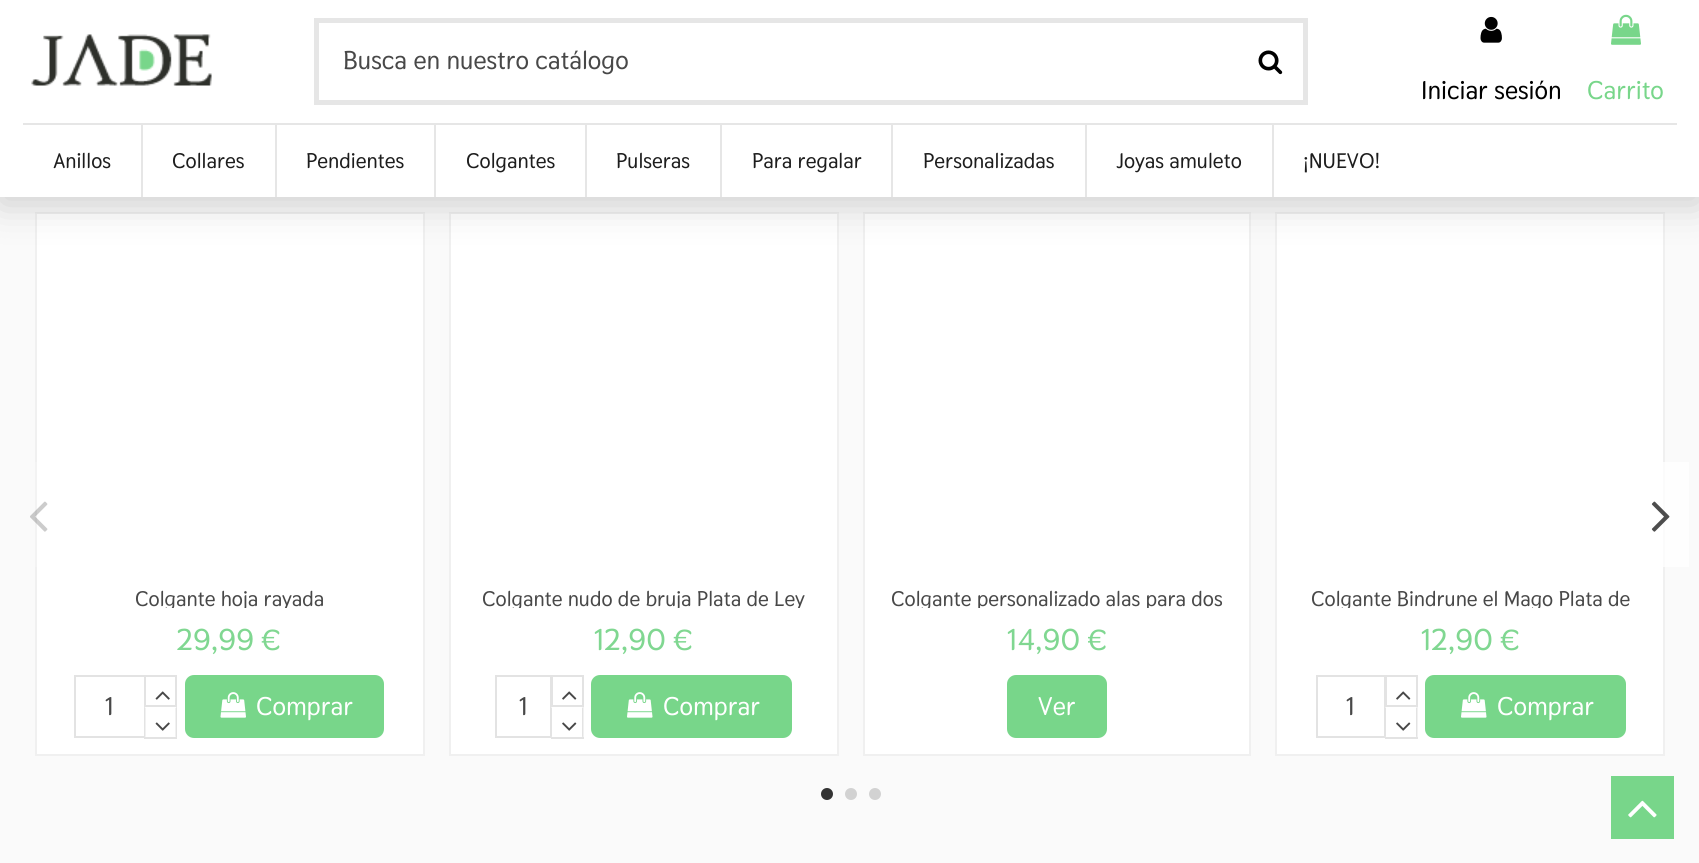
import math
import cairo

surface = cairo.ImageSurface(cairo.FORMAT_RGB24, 1699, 863)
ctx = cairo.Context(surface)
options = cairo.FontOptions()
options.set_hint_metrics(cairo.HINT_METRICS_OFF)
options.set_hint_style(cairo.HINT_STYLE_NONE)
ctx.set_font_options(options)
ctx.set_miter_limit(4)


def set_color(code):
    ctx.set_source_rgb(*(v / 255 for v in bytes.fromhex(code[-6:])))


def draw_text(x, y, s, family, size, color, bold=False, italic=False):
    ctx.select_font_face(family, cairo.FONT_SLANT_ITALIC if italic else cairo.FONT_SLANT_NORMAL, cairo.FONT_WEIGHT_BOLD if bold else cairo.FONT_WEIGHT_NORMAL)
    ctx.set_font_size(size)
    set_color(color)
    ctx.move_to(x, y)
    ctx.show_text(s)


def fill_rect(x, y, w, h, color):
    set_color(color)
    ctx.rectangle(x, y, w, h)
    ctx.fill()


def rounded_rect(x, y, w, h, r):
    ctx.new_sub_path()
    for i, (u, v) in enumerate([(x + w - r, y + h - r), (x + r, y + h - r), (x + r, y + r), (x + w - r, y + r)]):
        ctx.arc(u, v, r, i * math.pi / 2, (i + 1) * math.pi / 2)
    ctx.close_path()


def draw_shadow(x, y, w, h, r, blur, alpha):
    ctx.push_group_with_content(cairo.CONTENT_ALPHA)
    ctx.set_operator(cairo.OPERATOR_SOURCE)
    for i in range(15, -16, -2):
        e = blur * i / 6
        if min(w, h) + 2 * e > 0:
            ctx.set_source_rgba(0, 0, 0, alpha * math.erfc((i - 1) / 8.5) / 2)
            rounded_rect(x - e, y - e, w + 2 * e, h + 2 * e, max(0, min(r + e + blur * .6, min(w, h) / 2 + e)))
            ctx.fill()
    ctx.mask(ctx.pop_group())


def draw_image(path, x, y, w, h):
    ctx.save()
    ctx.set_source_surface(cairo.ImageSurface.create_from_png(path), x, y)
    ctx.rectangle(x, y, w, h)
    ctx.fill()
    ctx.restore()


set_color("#fafafa")
ctx.paint()
set_color("#ffffff")
ctx.rectangle(36, 213, 388, 542)
ctx.fill_preserve()
set_color("#f0f0f0")
ctx.stroke()
set_color("#ffffff")
ctx.rectangle(450, 213, 388, 542)
ctx.fill_preserve()
set_color("#f0f0f0")
ctx.stroke()
set_color("#ffffff")
ctx.rectangle(864, 213, 386, 542)
ctx.fill_preserve()
set_color("#f0f0f0")
ctx.stroke()
set_color("#ffffff")
ctx.rectangle(1276, 213, 388, 542)
ctx.fill_preserve()
set_color("#f0f0f0")
ctx.stroke()
set_color("#000000")
draw_shadow(0, 8, 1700, 196, 0, 19, 0.18)
fill_rect(0, 0, 1699, 197, "#ffffff")
draw_image("assets/img1.png", 31, 34, 181, 52)
ctx.rectangle(316.5, 20.5, 989, 82)
set_color("#e6e6e6")
ctx.set_line_width(5)
ctx.stroke()
draw_text(343, 69, "Busca en nuestro catálogo", "Thasadith", 25.5, "#484848", bold=True)
draw_image("assets/img2.png", 1258, 50, 25, 25)
draw_image("assets/img3.png", 1480, 16, 22, 27)
draw_text(1421, 99, "Iniciar sesión", "Thasadith", 25.5, "#000000", bold=True)
draw_image("assets/img4.png", 1611, 14, 30, 31)
draw_text(1587, 99, "Carrito", "Thasadith", 25.5, "#78d68a", bold=True)
fill_rect(23, 123, 1654, 2, "#e6e6e6")
draw_text(53, 168, "Anillos", "Thasadith", 21, "#1d1d1d", bold=True)
fill_rect(141, 125, 2, 72, "#e6e6e6")
draw_text(172, 168, "Collares", "Thasadith", 21, "#1d1d1d", bold=True)
fill_rect(275, 125, 2, 72, "#e6e6e6")
draw_text(306, 168, "Pendientes", "Thasadith", 21, "#1d1d1d", bold=True)
fill_rect(434, 125, 2, 72, "#e6e6e6")
draw_text(466, 168, "Colgantes", "Thasadith", 21, "#1d1d1d", bold=True)
fill_rect(585, 125, 2, 72, "#e6e6e6")
draw_text(616, 168, "Pulseras", "Thasadith", 21, "#1d1d1d", bold=True)
fill_rect(720, 125, 2, 72, "#e6e6e6")
draw_text(752, 168, "Para regalar", "Thasadith", 21, "#1d1d1d", bold=True)
fill_rect(891, 125, 2, 72, "#e6e6e6")
draw_text(923, 168, "Personalizadas", "Thasadith", 21, "#1d1d1d", bold=True)
fill_rect(1085, 125, 2, 72, "#e6e6e6")
draw_text(1116, 168, "Joyas amuleto", "Thasadith", 21, "#1d1d1d", bold=True)
fill_rect(1272, 125, 2, 72, "#e6e6e6")
draw_text(1303, 168, "¡NUEVO!", "Thasadith", 21, "#1d1d1d", bold=True)
ctx.set_source_rgba(1, 1, 1, 0.2)
ctx.rectangle(35, 462, 2, 105)
ctx.fill()
draw_image("assets/img5.png", 30, 501, 18, 31)
ctx.set_source_rgba(1, 1, 1, 0.7)
ctx.rectangle(1663, 462, 26, 105)
ctx.fill()
draw_image("assets/img6.png", 1651, 501, 19, 31)
ctx.save()
ctx.rectangle(53, 587, 354, 21)
ctx.clip()
draw_text(135, 606, "Colgante hoja rayada", "Thasadith", 21, "#484848", bold=True)
ctx.restore()
draw_text(177, 650, "29,99 €", "Thasadith", 30, "#80d791", bold=True)
ctx.rectangle(75, 676, 70, 61)
set_color("#e3e3e3")
ctx.set_line_width(2)
ctx.stroke()
draw_text(105, 715, "1", "Thasadith", 25.5, "#484848", bold=True)
ctx.rectangle(145, 676, 31, 30)
set_color("#e3e3e3")
ctx.stroke()
draw_image("assets/img7.png", 155, 691, 15, 9)
fill_rect(144, 707, 2, 30, "#ffffff")
set_color("#e3e3e3")
ctx.new_path()
ctx.move_to(177, 706.5)
ctx.line_to(177, 738)
ctx.line_to(175.5, 736.5)
ctx.line_to(175.5, 708)
ctx.close_path()
ctx.fill()
fill_rect(144, 737, 33, 2, "#e3e3e3")
ctx.new_path()
ctx.move_to(144, 738)
ctx.line_to(144, 706.5)
ctx.line_to(145.5, 708)
ctx.line_to(145.5, 736.5)
ctx.close_path()
ctx.fill()
draw_image("assets/img8.png", 155, 722, 15, 9)
set_color("#78d68a")
rounded_rect(185, 675, 199, 63, 9)
ctx.fill()
draw_image("assets/img9.png", 220, 692, 26, 26)
draw_text(256, 715, "Comprar", "Thasadith", 25.5, "#ffffff", bold=True)
ctx.save()
ctx.rectangle(467, 587, 354, 21)
ctx.clip()
draw_text(482, 606, "Colgante nudo de bruja Plata de Ley", "Thasadith", 21, "#484848", bold=True)
ctx.restore()
draw_text(594, 650, "12,90 €", "Thasadith", 30, "#80d791", bold=True)
ctx.rectangle(496, 676, 55, 61)
set_color("#e3e3e3")
ctx.stroke()
draw_text(519, 715, "1", "Thasadith", 25.5, "#484848", bold=True)
ctx.rectangle(552, 676, 31, 30)
set_color("#e3e3e3")
ctx.stroke()
draw_image("assets/img10.png", 562, 691, 15, 9)
fill_rect(551, 707, 1, 30, "#ffffff")
set_color("#e3e3e3")
ctx.new_path()
ctx.move_to(583.5, 706.5)
ctx.line_to(583.5, 738)
ctx.line_to(582, 736.5)
ctx.line_to(582, 708)
ctx.close_path()
ctx.fill()
fill_rect(551, 737, 33, 2, "#e3e3e3")
ctx.new_path()
ctx.move_to(550.5, 738)
ctx.line_to(550.5, 706.5)
ctx.line_to(552, 708)
ctx.line_to(552, 736.5)
ctx.close_path()
ctx.fill()
draw_image("assets/img11.png", 562, 722, 15, 9)
set_color("#78d68a")
rounded_rect(591, 675, 201, 63, 9)
ctx.fill()
draw_image("assets/img12.png", 627, 692, 26, 26)
draw_text(663, 715, "Comprar", "Thasadith", 25.5, "#ffffff", bold=True)
ctx.save()
ctx.rectangle(881, 587, 352, 21)
ctx.clip()
draw_text(891, 606, "Colgante personalizado alas para dos", "Thasadith", 21, "#484848", bold=True)
ctx.restore()
draw_text(1007, 650, "14,90 €", "Thasadith", 30, "#80d791", bold=True)
set_color("#78d68a")
rounded_rect(1007, 675, 100, 63, 9)
ctx.fill()
draw_text(1038, 715, "Ver", "Thasadith", 25.5, "#ffffff", bold=True)
ctx.save()
ctx.rectangle(1293, 587, 354, 21)
ctx.clip()
draw_text(1311, 606, "Colgante Bindrune el Mago Plata de", "Thasadith", 21, "#484848", bold=True)
ctx.restore()
draw_text(1421, 650, "12,90 €", "Thasadith", 30, "#80d791", bold=True)
ctx.rectangle(1317, 676, 68, 61)
set_color("#e3e3e3")
ctx.stroke()
draw_text(1346, 715, "1", "Thasadith", 25.5, "#484848", bold=True)
ctx.rectangle(1386, 676, 31, 30)
set_color("#e3e3e3")
ctx.stroke()
draw_image("assets/img10.png", 1396, 691, 15, 9)
fill_rect(1385, 707, 1, 30, "#ffffff")
set_color("#e3e3e3")
ctx.new_path()
ctx.move_to(1417.5, 706.5)
ctx.line_to(1417.5, 738)
ctx.line_to(1416, 736.5)
ctx.line_to(1416, 708)
ctx.close_path()
ctx.fill()
fill_rect(1385, 737, 33, 2, "#e3e3e3")
ctx.new_path()
ctx.move_to(1384.5, 738)
ctx.line_to(1384.5, 706.5)
ctx.line_to(1386, 708)
ctx.line_to(1386, 736.5)
ctx.close_path()
ctx.fill()
draw_image("assets/img11.png", 1396, 722, 15, 9)
set_color("#78d68a")
rounded_rect(1425, 675, 201, 63, 9)
ctx.fill()
draw_image("assets/img12.png", 1461, 692, 26, 26)
draw_text(1497, 715, "Comprar", "Thasadith", 25.5, "#ffffff", bold=True)
set_color("#333333")
ctx.new_path()
ctx.arc(827, 794, 6, 0, 2 * math.pi)
ctx.fill()
set_color("#d2d2d2")
ctx.arc(851, 794, 6, 0, 2 * math.pi)
ctx.fill()
ctx.arc(875, 794, 6, 0, 2 * math.pi)
ctx.fill()
fill_rect(1611, 776, 63, 63, "#78d68a")
draw_image("assets/img13.png", 1628, 800, 29, 18)
surface.write_to_png("output.png")
